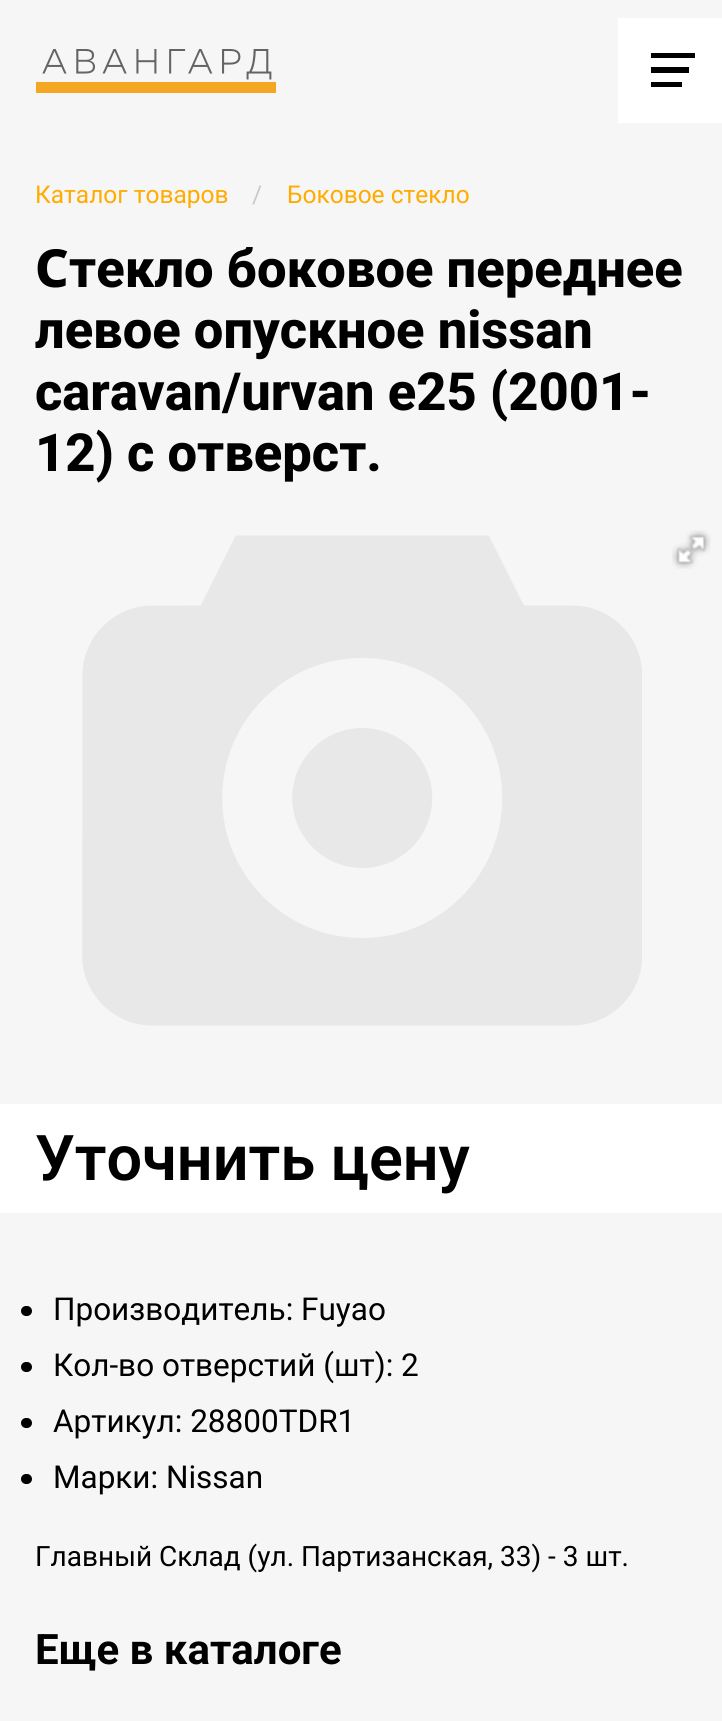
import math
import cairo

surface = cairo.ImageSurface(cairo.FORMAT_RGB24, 722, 1721)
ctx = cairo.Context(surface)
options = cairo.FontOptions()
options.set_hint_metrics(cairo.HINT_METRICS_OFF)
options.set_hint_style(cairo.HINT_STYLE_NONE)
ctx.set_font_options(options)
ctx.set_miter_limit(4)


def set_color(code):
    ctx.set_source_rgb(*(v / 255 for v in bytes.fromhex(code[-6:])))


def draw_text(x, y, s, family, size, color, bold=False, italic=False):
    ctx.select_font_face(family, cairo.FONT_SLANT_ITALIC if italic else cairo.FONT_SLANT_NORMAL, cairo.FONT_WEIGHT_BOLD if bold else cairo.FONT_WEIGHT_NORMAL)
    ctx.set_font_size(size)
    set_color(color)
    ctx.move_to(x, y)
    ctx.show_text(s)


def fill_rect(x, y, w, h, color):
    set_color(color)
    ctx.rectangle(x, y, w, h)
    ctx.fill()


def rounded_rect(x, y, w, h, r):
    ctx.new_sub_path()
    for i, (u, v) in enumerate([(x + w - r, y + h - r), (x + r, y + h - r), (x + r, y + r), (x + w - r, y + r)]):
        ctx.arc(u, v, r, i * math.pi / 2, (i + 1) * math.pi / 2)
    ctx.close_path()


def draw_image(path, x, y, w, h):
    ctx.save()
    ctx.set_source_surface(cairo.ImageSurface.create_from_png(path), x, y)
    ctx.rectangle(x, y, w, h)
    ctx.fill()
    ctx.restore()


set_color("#f6f6f6")
ctx.paint()
draw_image("assets/img1.png", 36, 49, 240, 44)
fill_rect(618, 18, 104, 105, "#ffffff")
fill_rect(651, 53, 44, 5, "#000000")
fill_rect(651, 67, 38, 6, "#000000")
fill_rect(651, 82, 31, 5, "#000000")
draw_text(35, 203, "Каталог товаров", "Roboto", 24.5, "#ffab00")
draw_text(252, 203, "/", "Roboto", 24.5, "#c9c9c9")
draw_text(287, 203, "Боковое стекло", "Roboto", 24.5, "#ffab00")
draw_text(35, 287, "С", "Noto Sans ExtraBold", 52.5, "#000000")
draw_text(69, 287, "текло боковое переднее", "Roboto ExtraBold", 52.5, "#000000")
draw_text(35, 348, "левое опускное nissan", "Roboto ExtraBold", 52.5, "#000000")
draw_text(35, 410, "caravan/urvan e25 (2001-", "Roboto ExtraBold", 52.5, "#000000")
draw_text(35, 471, "12) с отверст.", "Roboto ExtraBold", 52.5, "#000000")
draw_image("assets/img2.png", 82, 535, 560, 491)
draw_image("assets/img3.png", 672, 530, 39, 39)
fill_rect(0, 1104, 722, 109, "#ffffff")
draw_text(35, 1180, "Уточнить цену", "Roboto SemiBold", 63, "#000000")
rounded_rect(21, 1306, 11, 10, 5)
ctx.fill()
draw_text(53, 1320, "Производитель: Fuyao", "Roboto", 31.5, "#000000")
rounded_rect(21, 1362, 11, 10, 5)
ctx.fill()
draw_text(53, 1376, "Кол-во отверстий (шт): 2", "Roboto", 31.5, "#000000")
rounded_rect(21, 1418, 11, 10, 5)
ctx.fill()
draw_text(53, 1432, "Артикул: 28800TDR1", "Roboto", 31.5, "#000000")
rounded_rect(21, 1474, 11, 10, 5)
ctx.fill()
draw_text(53, 1488, "Марки: Nissan", "Roboto", 31.5, "#000000")
draw_text(35, 1566, "Главный Склад (ул. Партизанская, 33) - 3 шт.", "Roboto", 28, "#000000")
draw_text(35, 1664, "Еще в каталоге", "Roboto", 42, "#000000", bold=True)
surface.write_to_png("output.png")
